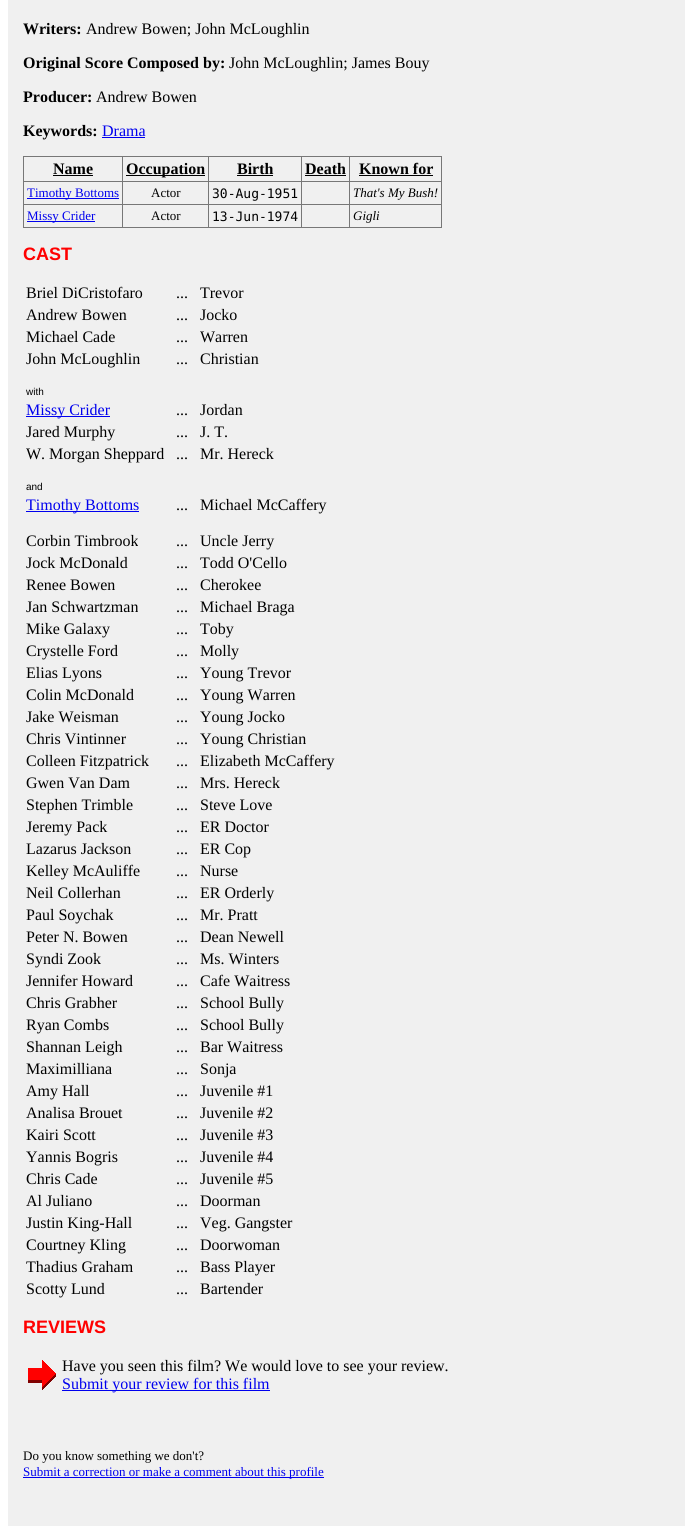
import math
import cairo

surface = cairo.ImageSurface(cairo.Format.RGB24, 685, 1526)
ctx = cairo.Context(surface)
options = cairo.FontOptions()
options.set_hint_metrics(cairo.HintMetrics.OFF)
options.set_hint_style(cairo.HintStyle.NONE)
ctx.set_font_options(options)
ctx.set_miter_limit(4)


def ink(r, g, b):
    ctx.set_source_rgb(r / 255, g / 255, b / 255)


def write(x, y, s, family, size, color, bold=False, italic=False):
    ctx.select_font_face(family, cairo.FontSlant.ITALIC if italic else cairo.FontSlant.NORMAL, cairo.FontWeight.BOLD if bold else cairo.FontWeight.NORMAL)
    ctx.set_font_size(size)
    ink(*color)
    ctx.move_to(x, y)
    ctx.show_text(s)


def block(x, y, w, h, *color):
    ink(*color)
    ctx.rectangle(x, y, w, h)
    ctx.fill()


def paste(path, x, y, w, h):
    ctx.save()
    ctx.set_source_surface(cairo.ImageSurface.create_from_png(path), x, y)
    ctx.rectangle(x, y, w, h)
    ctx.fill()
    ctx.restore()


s1 = dict(family="Liberation Serif", size=16, color=(0, 0, 0), bold=True)
s2 = dict(family="Liberation Serif", size=16, color=(0, 0, 0))
s3 = dict(family="Liberation Serif", size=16, color=(0, 0, 238))
s4 = dict(family="Liberation Serif", size=13, color=(0, 0, 238))
s5 = dict(family="Liberation Serif", size=13, color=(0, 0, 0))
s6 = dict(family="DejaVu Sans Mono", size=13, color=(0, 0, 0))
s7 = dict(family="Liberation Serif", size=13, color=(0, 0, 0), italic=True)
s8 = dict(family="Liberation Sans", size=18, color=(255, 0, 0), bold=True)
s9 = dict(family="Liberation Sans", size=10, color=(0, 0, 0))

ink(255, 255, 255)
ctx.paint()
block(8, 0, 677, 1526, 240, 240, 240)
write(23, 34, "Writers:", **s1)
write(86, 34, "Andrew Bowen; John McLoughlin", **s2)
write(23, 68, "Original Score Composed by:", **s1)
write(229, 68, "John McLoughlin; James Bouy", **s2)
write(23, 102, "Producer:", **s1)
write(96, 102, "Andrew Bowen", **s2)
write(23, 136, "Keywords:", **s1)
write(102, 136, "Drama", **s3)
block(102, 137, 43, 1, 0, 0, 238)
block(23, 156, 419, 1, 119, 119, 119)
block(441, 156, 1, 72, 119, 119, 119)
block(23, 227, 419, 1, 119, 119, 119)
block(23, 156, 1, 72, 119, 119, 119)
write(53, 174, "Name", **s1)
block(53, 175, 40, 1, 0, 0, 0)
block(349, 181, 93, 1, 119, 119, 119)
block(349, 204, 93, 1, 119, 119, 119)
block(349, 204, 1, 24, 119, 119, 119)
block(301, 204, 49, 1, 119, 119, 119)
block(349, 181, 1, 24, 119, 119, 119)
block(301, 181, 49, 1, 119, 119, 119)
block(301, 204, 1, 24, 119, 119, 119)
block(208, 204, 94, 1, 119, 119, 119)
block(301, 181, 1, 24, 119, 119, 119)
block(208, 181, 94, 1, 119, 119, 119)
block(208, 204, 1, 24, 119, 119, 119)
block(122, 204, 87, 1, 119, 119, 119)
block(208, 181, 1, 24, 119, 119, 119)
block(122, 181, 87, 1, 119, 119, 119)
block(122, 204, 1, 24, 119, 119, 119)
block(23, 204, 100, 1, 119, 119, 119)
block(122, 181, 1, 24, 119, 119, 119)
block(23, 181, 100, 1, 119, 119, 119)
block(122, 156, 1, 26, 119, 119, 119)
block(126, 175, 79, 1, 0, 0, 0)
write(126, 174, "Occupation", **s1)
block(208, 156, 1, 26, 119, 119, 119)
write(237, 174, "Birth", **s1)
block(237, 175, 36, 1, 0, 0, 0)
block(301, 156, 1, 26, 119, 119, 119)
write(305, 174, "Death", **s1)
block(305, 175, 41, 1, 0, 0, 0)
block(349, 156, 1, 26, 119, 119, 119)
write(359, 174, "Known for", **s1)
block(359, 175, 74, 1, 0, 0, 0)
block(27, 198, 92, 1, 0, 0, 238)
write(27, 197, "Timothy Bottoms", **s4)
write(151, 197, "Actor", **s5)
write(212, 198, "30-Aug-1951", **s6)
write(353, 197, "That's My Bush!", **s7)
block(27, 221, 68, 1, 0, 0, 238)
write(27, 220, "Missy Crider", **s4)
write(151, 220, "Actor", **s5)
write(212, 221, "13-Jun-1974", **s6)
write(353, 220, "Gigli", **s7)
write(23, 260, "CAST", **s8)
write(26, 298, "Briel DiCristofaro", **s2)
write(176, 298, "...   Trevor", **s2)
write(26, 320, "Andrew Bowen", **s2)
write(176, 320, "...   Jocko", **s2)
write(26, 342, "Michael Cade", **s2)
write(176, 342, "...   Warren", **s2)
write(26, 364, "John McLoughlin", **s2)
write(176, 364, "...   Christian", **s2)
write(26, 395, "with", **s9)
block(26, 416, 84, 1, 0, 0, 238)
write(26, 415, "Missy Crider", **s3)
write(176, 415, "...   Jordan", **s2)
write(26, 437, "Jared Murphy", **s2)
write(176, 437, "...   J. T.", **s2)
write(26, 459, "W. Morgan Sheppard", **s2)
write(176, 459, "...   Mr. Hereck", **s2)
write(26, 490, "and", **s9)
block(26, 511, 113, 1, 0, 0, 238)
write(26, 510, "Timothy Bottoms", **s3)
write(176, 510, "...   Michael McCaffery", **s2)
write(26, 546, "Corbin Timbrook", **s2)
write(176, 546, "...   Uncle Jerry", **s2)
write(26, 568, "Jock McDonald", **s2)
write(176, 568, "...   Todd O'Cello", **s2)
write(26, 590, "Renee Bowen", **s2)
write(176, 590, "...   Cherokee", **s2)
write(26, 612, "Jan Schwartzman", **s2)
write(176, 612, "...   Michael Braga", **s2)
write(26, 634, "Mike Galaxy", **s2)
write(176, 634, "...   Toby", **s2)
write(26, 656, "Crystelle Ford", **s2)
write(176, 656, "...   Molly", **s2)
write(26, 678, "Elias Lyons", **s2)
write(176, 678, "...   Young Trevor", **s2)
write(26, 700, "Colin McDonald", **s2)
write(176, 700, "...   Young Warren", **s2)
write(26, 722, "Jake Weisman", **s2)
write(176, 722, "...   Young Jocko", **s2)
write(26, 744, "Chris Vintinner", **s2)
write(176, 744, "...   Young Christian", **s2)
write(26, 766, "Colleen Fitzpatrick", **s2)
write(176, 766, "...   Elizabeth McCaffery", **s2)
write(26, 788, "Gwen Van Dam", **s2)
write(176, 788, "...   Mrs. Hereck", **s2)
write(26, 810, "Stephen Trimble", **s2)
write(176, 810, "...   Steve Love", **s2)
write(26, 832, "Jeremy Pack", **s2)
write(176, 832, "...   ER Doctor", **s2)
write(26, 854, "Lazarus Jackson", **s2)
write(176, 854, "...   ER Cop", **s2)
write(26, 876, "Kelley McAuliffe", **s2)
write(176, 876, "...   Nurse", **s2)
write(26, 898, "Neil Collerhan", **s2)
write(176, 898, "...   ER Orderly", **s2)
write(26, 920, "Paul Soychak", **s2)
write(176, 920, "...   Mr. Pratt", **s2)
write(26, 942, "Peter N. Bowen", **s2)
write(176, 942, "...   Dean Newell", **s2)
write(26, 964, "Syndi Zook", **s2)
write(176, 964, "...   Ms. Winters", **s2)
write(26, 986, "Jennifer Howard", **s2)
write(176, 986, "...   Cafe Waitress", **s2)
write(26, 1008, "Chris Grabher", **s2)
write(176, 1008, "...   School Bully", **s2)
write(26, 1030, "Ryan Combs", **s2)
write(176, 1030, "...   School Bully", **s2)
write(26, 1052, "Shannan Leigh", **s2)
write(176, 1052, "...   Bar Waitress", **s2)
write(26, 1074, "Maximilliana", **s2)
write(176, 1074, "...   Sonja", **s2)
write(26, 1096, "Amy Hall", **s2)
write(176, 1096, "...   Juvenile #1", **s2)
write(26, 1118, "Analisa Brouet", **s2)
write(176, 1118, "...   Juvenile #2", **s2)
write(26, 1140, "Kairi Scott", **s2)
write(176, 1140, "...   Juvenile #3", **s2)
write(26, 1162, "Yannis Bogris", **s2)
write(176, 1162, "...   Juvenile #4", **s2)
write(26, 1184, "Chris Cade", **s2)
write(176, 1184, "...   Juvenile #5", **s2)
write(26, 1206, "Al Juliano", **s2)
write(176, 1206, "...   Doorman", **s2)
write(26, 1228, "Justin King-Hall", **s2)
write(176, 1228, "...   Veg. Gangster", **s2)
write(26, 1250, "Courtney Kling", **s2)
write(176, 1250, "...   Doorwoman", **s2)
write(26, 1272, "Thadius Graham", **s2)
write(176, 1272, "...   Bass Player", **s2)
write(26, 1294, "Scotty Lund", **s2)
write(176, 1294, "...   Bartender", **s2)
write(23, 1333, "REVIEWS", **s8)
paste("pic1.png", 28, 1360, 28, 30)
write(62, 1371, "Have you seen this film? We would love to see your review.", **s2)
block(62, 1390, 208, 1, 0, 0, 238)
write(62, 1389, "Submit your review for this film", **s3)
write(23, 1460, "Do you know something we don't?", **s5)
block(23, 1477, 301, 1, 0, 0, 238)
write(23, 1476, "Submit a correction or make a comment about this profile", **s4)
surface.write_to_png("screenshot.png")
